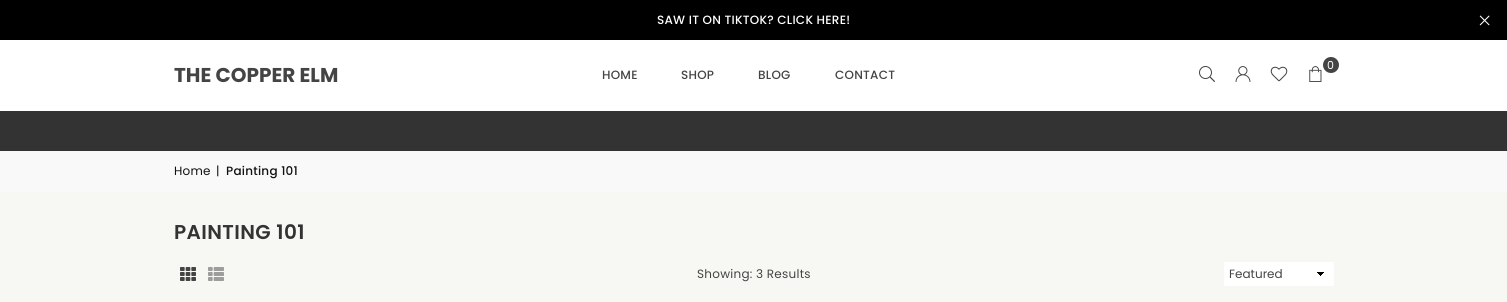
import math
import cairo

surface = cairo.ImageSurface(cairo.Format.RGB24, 1507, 302)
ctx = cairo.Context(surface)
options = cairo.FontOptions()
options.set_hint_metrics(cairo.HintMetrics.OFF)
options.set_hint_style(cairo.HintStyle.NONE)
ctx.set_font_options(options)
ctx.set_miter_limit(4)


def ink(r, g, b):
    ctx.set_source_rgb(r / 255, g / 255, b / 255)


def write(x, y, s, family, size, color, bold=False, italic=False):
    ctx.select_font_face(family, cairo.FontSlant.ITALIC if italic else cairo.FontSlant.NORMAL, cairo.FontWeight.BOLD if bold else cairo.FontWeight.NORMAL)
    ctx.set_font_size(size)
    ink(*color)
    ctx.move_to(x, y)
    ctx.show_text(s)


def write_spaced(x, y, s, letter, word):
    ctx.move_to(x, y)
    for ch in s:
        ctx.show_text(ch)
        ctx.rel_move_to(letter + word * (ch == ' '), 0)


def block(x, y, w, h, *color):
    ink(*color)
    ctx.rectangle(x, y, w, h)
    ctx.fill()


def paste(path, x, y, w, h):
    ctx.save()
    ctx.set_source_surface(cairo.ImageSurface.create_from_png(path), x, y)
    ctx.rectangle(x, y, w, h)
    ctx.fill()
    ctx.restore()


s1 = dict(family="Poppins", size=20, color=(68, 68, 68), bold=True)
s2 = dict(family="Poppins", size=12, color=(68, 68, 68))

ink(247, 247, 244)
ctx.paint()
block(0, 0, 1507, 40, 0, 0, 0)
ctx.select_font_face("Poppins Medium")
ctx.set_font_size(12)
ink(255, 255, 255)
write_spaced(657, 24, "SAW IT ON TIKTOK? CLICK HERE!", 0.25, 0)
paste("pic1.png", 1479, 15, 11, 11)
block(0, 40, 1507, 71, 255, 255, 255)
ink(68, 68, 68)
ctx.arc(1331, 65, 8, 0, 2 * math.pi)
ctx.fill()
ctx.select_font_face("Poppins")
ctx.set_font_size(11)
ink(255, 255, 255)
write_spaced(1327, 69, "0", 0.25, 0)
paste("pic2.png", 1309, 66, 13, 16)
paste("pic3.png", 1199, 66, 16, 16)
paste("pic4.png", 1235, 66, 16, 16)
paste("pic5.png", 1270, 66, 18, 16)
write(174, 82, "THE COPPER ELM", **s1)
ctx.select_font_face("Poppins Medium")
ctx.set_font_size(12)
write_spaced(602, 79, "HOME", 0.25, 0)
write_spaced(681, 79, "SHOP", 0.25, 0)
write_spaced(758, 79, "BLOG", 0.25, 0)
write_spaced(835, 79, "CONTACT", 0.25, 0)
block(0, 111, 1507, 40, 51, 51, 51)
block(0, 151, 1507, 41, 249, 249, 249)
ctx.select_font_face("Poppins")
ink(17, 17, 17)
write_spaced(174, 175, "Home", 0.25, 0)
write_spaced(216, 175, "|", 0.25, 0)
ctx.select_font_face("Poppins Medium")
write_spaced(226, 175, "Painting 101", 0.25, 0)
ctx.select_font_face("Poppins SemiBold")
ctx.set_font_size(20)
ink(51, 51, 51)
write_spaced(174, 239, "PAINTING 101", 0.4, 0)
paste("pic6.png", 180, 267, 16, 14)
paste("pic7.png", 208, 267, 16, 14)
ctx.select_font_face("Poppins")
ctx.set_font_size(12)
ink(68, 68, 68)
write_spaced(697, 278, "Showing: 3 Results", 0.25, 0)
block(1224, 262, 110, 24, 255, 255, 255)
paste("pic8.png", 1317, 272, 7, 4)
write(1229, 278, "Featured", **s2)
surface.write_to_png("screenshot.png")
